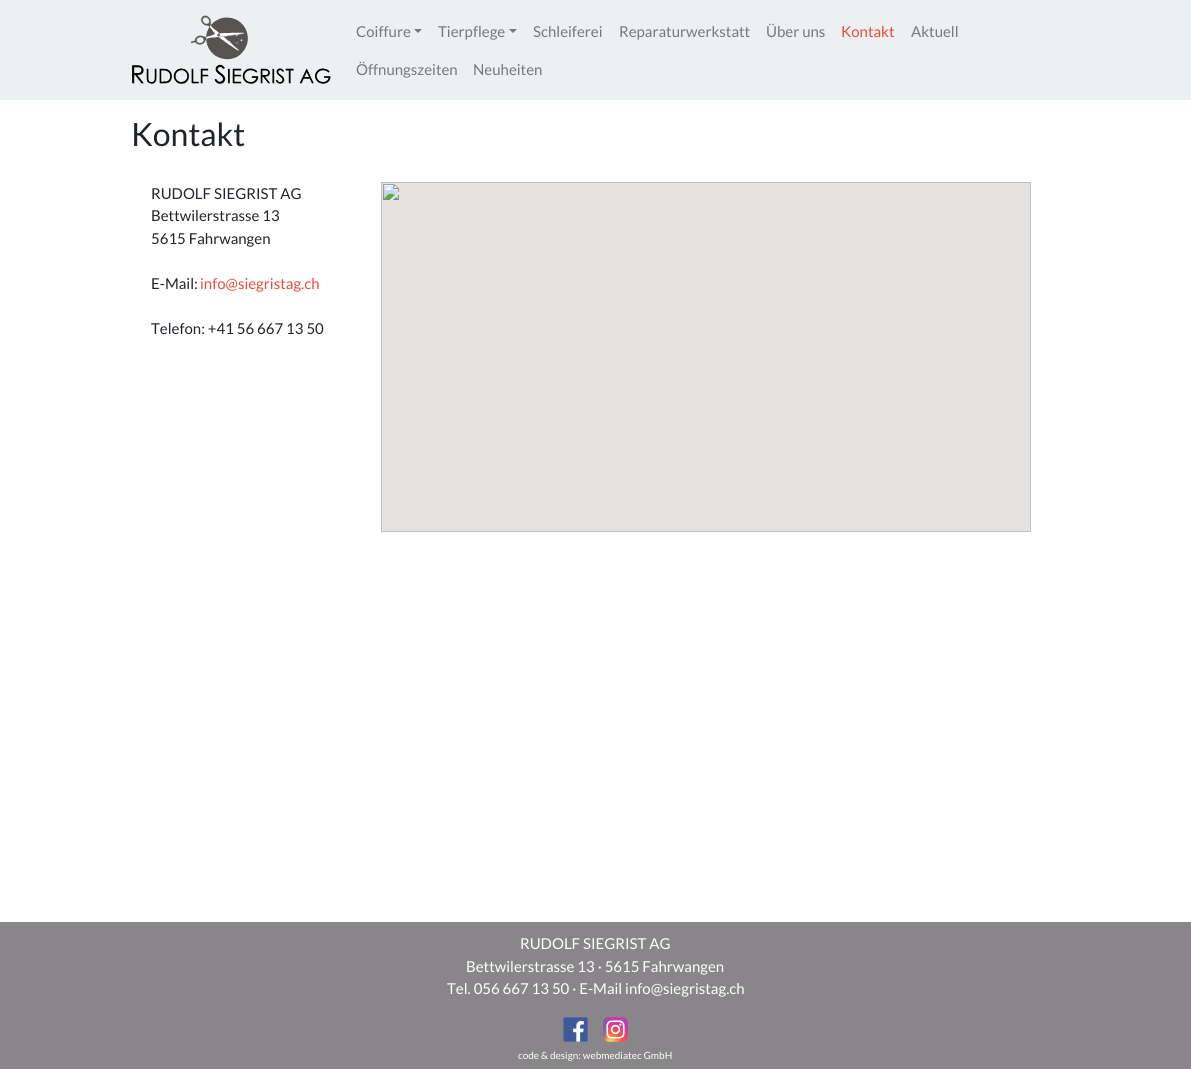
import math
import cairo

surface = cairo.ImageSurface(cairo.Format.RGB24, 1191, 1069)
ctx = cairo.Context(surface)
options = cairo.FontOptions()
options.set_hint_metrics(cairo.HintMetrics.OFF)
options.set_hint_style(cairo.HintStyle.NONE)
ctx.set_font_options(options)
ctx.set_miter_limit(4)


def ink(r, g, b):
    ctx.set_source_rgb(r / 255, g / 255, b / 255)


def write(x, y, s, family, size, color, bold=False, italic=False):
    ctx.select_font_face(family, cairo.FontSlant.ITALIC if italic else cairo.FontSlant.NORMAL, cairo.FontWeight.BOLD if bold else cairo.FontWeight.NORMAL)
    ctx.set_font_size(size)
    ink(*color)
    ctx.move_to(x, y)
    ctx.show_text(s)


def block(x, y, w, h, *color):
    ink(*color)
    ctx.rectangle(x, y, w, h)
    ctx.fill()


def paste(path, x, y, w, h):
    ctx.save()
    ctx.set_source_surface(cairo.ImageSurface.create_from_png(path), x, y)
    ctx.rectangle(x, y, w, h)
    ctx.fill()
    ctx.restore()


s1 = dict(family="Lato", size=15, color=(118, 120, 121))
s2 = dict(family="Lato", size=15, color=(231, 76, 60))
s3 = dict(family="Lato", size=32, color=(33, 37, 41))
s4 = dict(family="Lato", size=15, color=(33, 37, 41))
s5 = dict(family="Lato", size=15, color=(255, 255, 255))
s6 = dict(family="Lato", size=10, color=(255, 255, 255))

ink(255, 255, 255)
ctx.paint()
block(0, 0, 1191, 100, 236, 240, 241)
paste("pic1.png", 132, 15, 199, 69)
write(356, 37, "Coiffure", **s1)
ctx.new_path()
ctx.move_to(414, 29)
ctx.line_to(422, 29)
ctx.line_to(418, 33)
ctx.close_path()
ctx.fill()
write(438, 37, "Tierpflege", **s1)
ctx.new_path()
ctx.move_to(509, 29)
ctx.line_to(517, 29)
ctx.line_to(513, 33)
ctx.close_path()
ctx.fill()
write(533, 37, "Schleiferei", **s1)
write(619, 37, "Reparaturwerkstatt", **s1)
write(766, 37, "Über uns", **s1)
write(841, 37, "Kontakt", **s2)
write(911, 37, "Aktuell", **s1)
write(356, 75, "Öffnungszeiten", **s1)
write(473, 75, "Neuheiten", **s1)
write(131, 146, "Kontakt", **s3)
write(151, 199, "RUDOLF SIEGRIST AG", **s4)
write(151, 221, "Bettwilerstrasse 13", **s4)
write(151, 244, "5615 Fahrwangen", **s4)
write(151, 289, "E-Mail:", **s4)
write(200, 289, "info@siegristag.ch", **s2)
write(151, 334, "Telefon: +41 56 667 13 50", **s4)
paste("pic2.png", 381, 182, 650, 350)
block(0, 922, 1191, 147, 136, 134, 136)
write(520, 949, "RUDOLF SIEGRIST AG", **s5)
write(466, 972, "Bettwilerstrasse 13 · 5615 Fahrwangen", **s5)
write(447, 994, "Tel. 056 667 13 50 · E-Mail info@siegristag.ch", **s5)
paste("pic3.png", 563, 1017, 25, 25)
paste("pic4.png", 603, 1017, 25, 25)
write(518, 1059, "code & design: webmediatec GmbH", **s6)
surface.write_to_png("screenshot.png")
